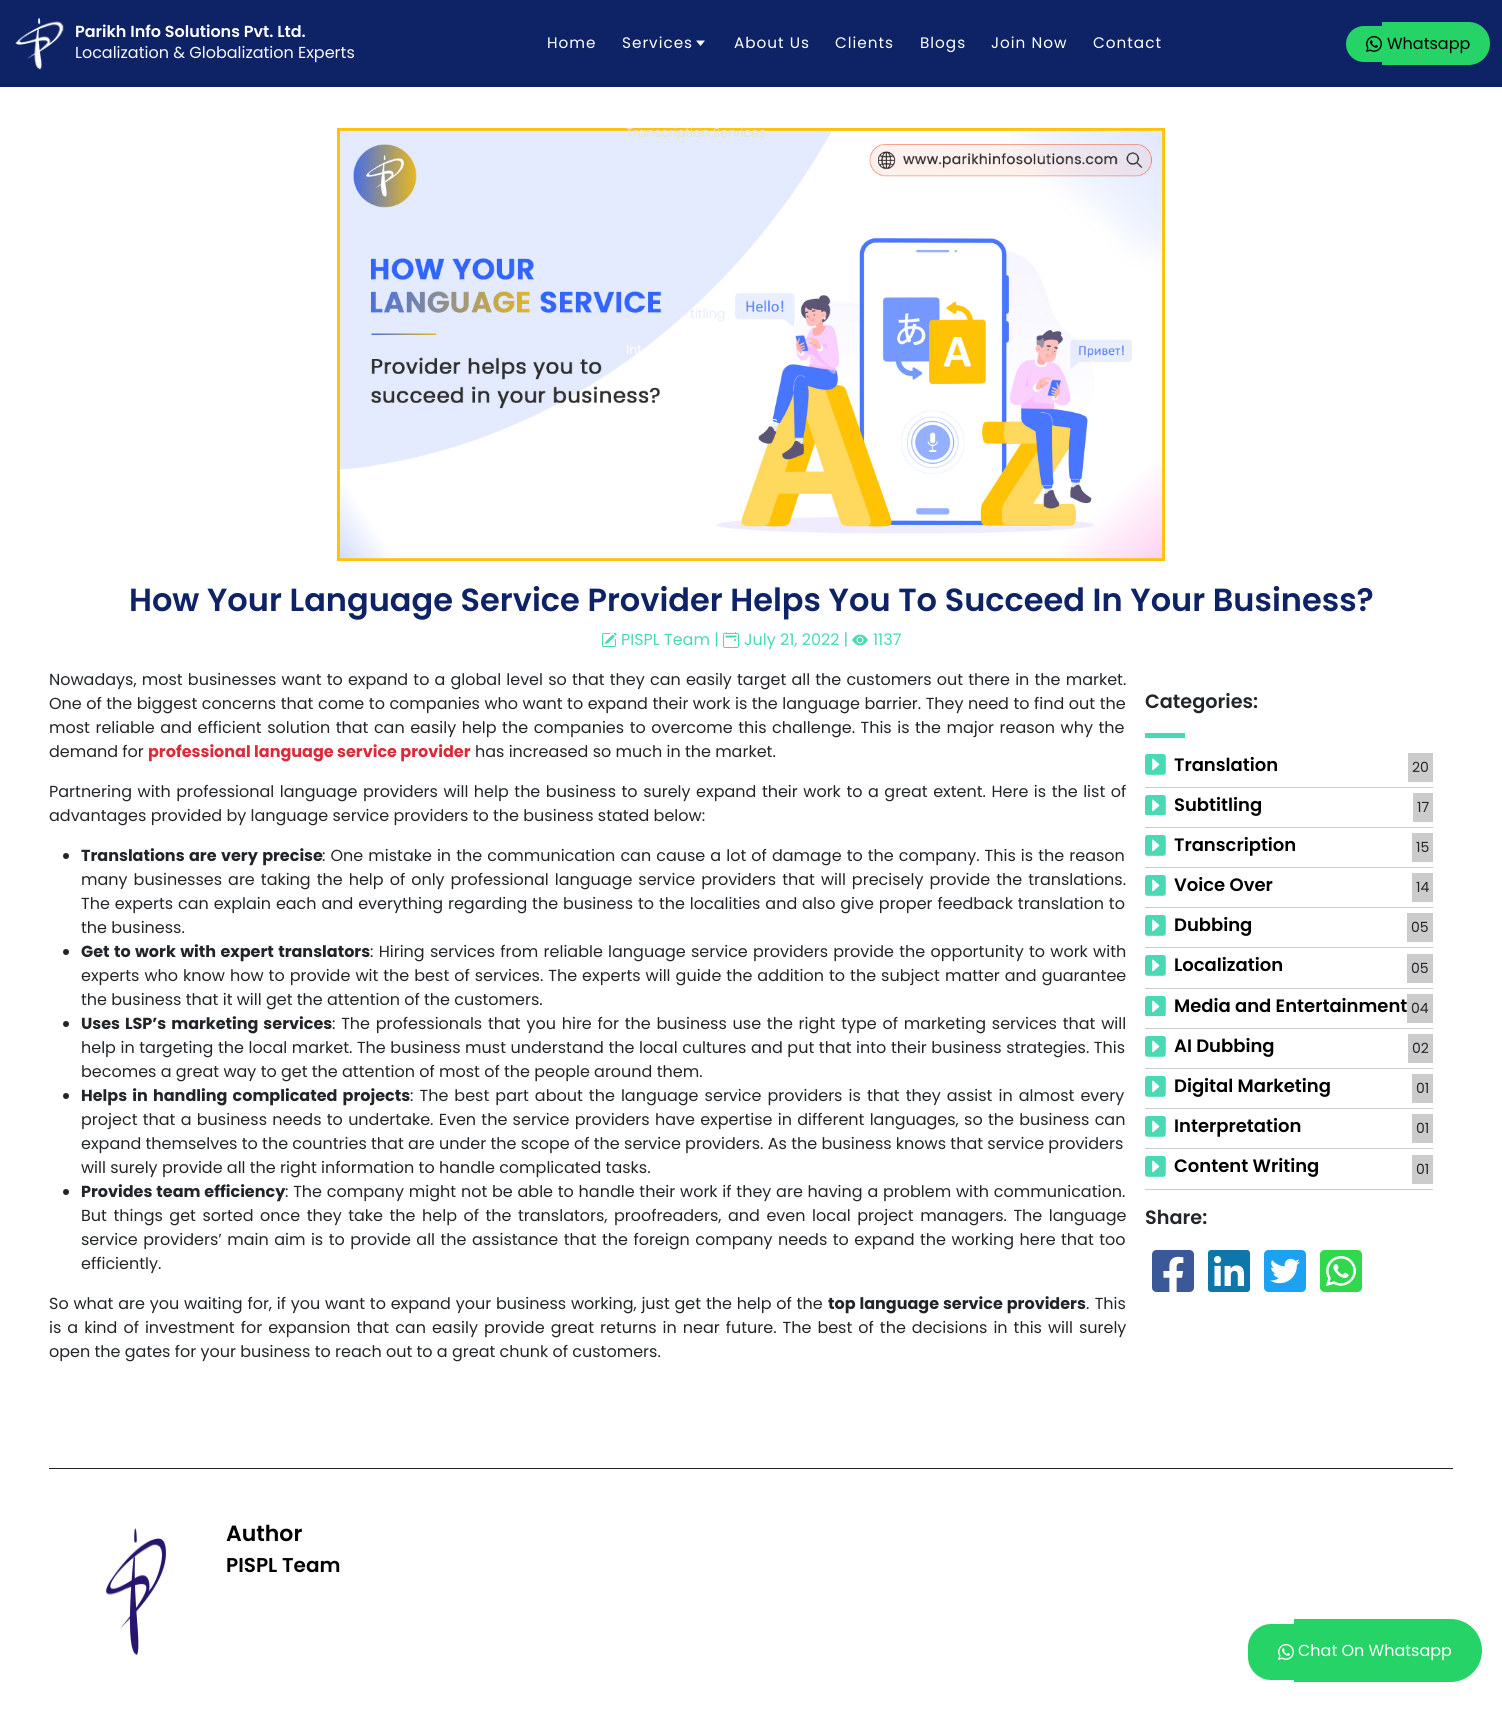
import math
import cairo

surface = cairo.ImageSurface(cairo.Format.RGB24, 1502, 1713)
ctx = cairo.Context(surface)
options = cairo.FontOptions()
options.set_hint_metrics(cairo.HintMetrics.OFF)
options.set_hint_style(cairo.HintStyle.NONE)
ctx.set_font_options(options)
ctx.set_miter_limit(4)


def ink(r, g, b):
    ctx.set_source_rgb(r / 255, g / 255, b / 255)


def write(x, y, s, family, size, color, bold=False, italic=False):
    ctx.select_font_face(family, cairo.FontSlant.ITALIC if italic else cairo.FontSlant.NORMAL, cairo.FontWeight.BOLD if bold else cairo.FontWeight.NORMAL)
    ctx.set_font_size(size)
    ink(*color)
    ctx.move_to(x, y)
    ctx.show_text(s)


def write_spaced(x, y, s, letter, word):
    ctx.move_to(x, y)
    for ch in s:
        ctx.show_text(ch)
        ctx.rel_move_to(letter + word * (ch == ' '), 0)


def block(x, y, w, h, *color):
    ink(*color)
    ctx.rectangle(x, y, w, h)
    ctx.fill()


def paste(path, x, y, w, h):
    ctx.save()
    ctx.set_source_surface(cairo.ImageSurface.create_from_png(path), x, y)
    ctx.rectangle(x, y, w, h)
    ctx.fill()
    ctx.restore()


s1 = dict(family="Poppins SemiBold", size=16, color=(255, 255, 255))
s2 = dict(family="Poppins", size=16, color=(248, 249, 250))
s3 = dict(family="Poppins", size=12.75, color=(233, 227, 203))
s4 = dict(family="Poppins", size=12.75, color=(229, 235, 254))
s5 = dict(family="Poppins", size=12.75, color=(255, 255, 255))
s6 = dict(family="Poppins", size=16, color=(0, 0, 0))
s7 = dict(family="Poppins SemiBold", size=32, color=(13, 35, 102))
s8 = dict(family="Poppins", size=16, color=(73, 218, 181))
s9 = dict(family="Poppins", size=16, color=(33, 37, 41))
s10 = dict(family="Poppins", size=16, color=(219, 43, 57), bold=True)
s11 = dict(family="Poppins SemiBold", size=19.25, color=(33, 37, 41))
s12 = dict(family="Poppins SemiBold", size=18, color=(0, 0, 0))
s13 = dict(family="Poppins", size=14, color=(33, 37, 41))
s14 = dict(family="Poppins SemiBold", size=22, color=(0, 0, 0))
s15 = dict(family="Poppins SemiBold", size=20, color=(0, 0, 0))
s16 = dict(family="Poppins", size=16, color=(255, 255, 255))

ink(255, 255, 255)
ctx.paint()
block(0, 0, 1502, 87, 13, 35, 102)
paste("pic1.png", 15, 17, 49, 53)
write(75, 37, "Parikh Info Solutions Pvt. Ltd.", **s1)
write(75, 58, "Localization & Globalization Experts", **s2)
ctx.set_font_size(15.25)
ink(255, 255, 255)
write_spaced(622, 48, "Services", 1, 0)
ctx.new_path()
ctx.move_to(700.5, 46)
ctx.line_to(705, 40.5)
ctx.line_to(696, 40.5)
ctx.close_path()
ctx.fill()
paste("pic3.png", 337, 128, 828, 433)
write(626, 137, "Transcription Services", **s3)
write(690, 318, "titling", **s4)
write(626, 354, "Int", **s5)
write(771, 426, "s", **s5)
ctx.set_font_size(15.25)
write_spaced(547, 48, "Home", 1, 0)
write_spaced(734, 48, "About Us", 1, 0)
write_spaced(835, 48, "Clients", 1, 0)
write_spaced(920, 48, "Blogs", 1, 0)
write_spaced(991, 48, "Join Now", 1, 0)
write_spaced(1093, 48, "Contact", 1, 0)
ink(37, 211, 102)
ctx.new_path()
ctx.move_to(1364, 26)
ctx.line_to(1382, 26)
ctx.line_to(1382, 62)
ctx.line_to(1364, 62)
ctx.curve_to(1354, 62, 1346, 54, 1346, 44)
ctx.curve_to(1346, 34, 1354, 26, 1364, 26)
ctx.close_path()
ctx.fill()
paste("pic2.png", 1366, 36, 16, 16)
ctx.new_path()
ctx.move_to(1382, 22)
ctx.line_to(1468.5, 22)
ctx.curve_to(1480.5, 22, 1490, 31.5, 1490, 43.5)
ctx.curve_to(1490, 55.5, 1480.5, 65, 1468.5, 65)
ctx.line_to(1382, 65)
ctx.close_path()
ctx.fill()
write(1387, 49, "Whatsapp", **s6)
write(129, 611, "How Your Language Service Provider Helps You To Succeed In Your Business?", **s7)
paste("pic4.png", 602, 632, 15, 15)
write(621, 645, "PISPL Team |", **s8)
paste("pic5.png", 723, 632, 16, 16)
write(744, 645, "July 21, 2022 |", **s8)
paste("pic6.png", 852, 634, 16, 12)
write(873, 645, "1137", **s8)
ink(33, 37, 41)
write_spaced(49, 685, "Nowadays, most businesses want to expand to a global level so that they can easily target all the customers out there in the market.", 0, 0.9)
write_spaced(49, 709, "One of the biggest concerns that come to companies who want to expand their work is the language barrier. They need to find out the", 0, 0.25)
write_spaced(49, 733, "most reliable and efficient solution that can easily help the companies to overcome this challenge. This is the major reason why the", 0, 1.25)
write(49, 757, "demand for", **s9)
write(148, 757, "professional language service provider", **s10)
write(475, 757, "has increased so much in the market.", **s9)
write_spaced(49, 797, "Partnering with professional language providers will help the business to surely expand their work to a great extent. Here is the list of", 0, 1.25)
write(49, 821, "advantages provided by language service providers to the business stated below:", **s9)
ctx.new_path()
ctx.arc(66, 856, 3, 0, 2 * math.pi)
ctx.fill()
ctx.select_font_face("Poppins", cairo.FontSlant.NORMAL, cairo.FontWeight.BOLD)
write_spaced(81, 861, "Translations are very precise", 0, 1)
ctx.select_font_face("Poppins")
write_spaced(322, 861, ": One mistake in the communication can cause a lot of damage to the company. This is the reason", 0, 0.8)
write_spaced(81, 885, "many businesses are taking the help of only professional language service providers that will precisely provide the translations.", 0, 1.75)
write_spaced(81, 909, "The experts can explain each and everything regarding the business to the localities and also give proper feedback translation to", 0, 0.6)
write(81, 933, "the business.", **s9)
ctx.new_path()
ctx.arc(66, 952, 3, 0, 2 * math.pi)
ctx.fill()
ctx.select_font_face("Poppins", cairo.FontSlant.NORMAL, cairo.FontWeight.BOLD)
write_spaced(81, 957, "Get to work with expert translators", 0, 1)
ctx.select_font_face("Poppins")
write_spaced(370, 957, ": Hiring services from reliable language service providers provide the opportunity to work with", 0, 1)
write_spaced(81, 981, "experts who know how to provide wit the best of services. The experts will guide the addition to the subject matter and guarantee", 0, 0.75)
write(81, 1005, "the business that it will get the attention of the customers.", **s9)
ctx.new_path()
ctx.arc(66, 1024, 3, 0, 2 * math.pi)
ctx.fill()
ctx.select_font_face("Poppins", cairo.FontSlant.NORMAL, cairo.FontWeight.BOLD)
write_spaced(81, 1029, "Uses LSP’s marketing services", 0, 1.5)
ctx.select_font_face("Poppins")
write_spaced(332, 1029, ": The professionals that you hire for the business use the right type of marketing services that will", 0, 1.5)
write_spaced(81, 1053, "help in targeting the local market. The business must understand the local cultures and put that into their business strategies. This", 0, 0.3)
write(81, 1077, "becomes a great way to get the attention of most of the people around them.", **s9)
ctx.new_path()
ctx.arc(66, 1096, 3, 0, 2 * math.pi)
ctx.fill()
ctx.select_font_face("Poppins", cairo.FontSlant.NORMAL, cairo.FontWeight.BOLD)
write_spaced(81, 1101, "Helps in handling complicated projects", 0, 1.8)
ctx.select_font_face("Poppins")
write_spaced(410, 1101, ": The best part about the language service providers is that they assist in almost every", 0, 1.8)
write_spaced(81, 1125, "project that a business needs to undertake. Even the service providers have expertise in different languages, so the business can", 0, 1)
write(81, 1149, "expand themselves to the countries that are under the scope of the service providers. As the business knows that service providers", **s9)
write(81, 1173, "will surely provide all the right information to handle complicated tasks.", **s9)
ctx.new_path()
ctx.arc(66, 1192, 3, 0, 2 * math.pi)
ctx.fill()
ctx.select_font_face("Poppins", cairo.FontSlant.NORMAL, cairo.FontWeight.BOLD)
write_spaced(81, 1197, "Provides team efficiency", 0, 0.5)
ctx.select_font_face("Poppins")
write_spaced(285, 1197, ": The company might not be able to handle their work if they are having a problem with communication.", 0, 0.5)
write_spaced(81, 1221, "But things get sorted once they take the help of the translators, proofreaders, and even local project managers. The language", 0, 2.25)
write_spaced(81, 1245, "service providers’ main aim is to provide all the assistance that the foreign company needs to expand the working here that too", 0, 1.2)
write(81, 1269, "efficiently.", **s9)
write_spaced(49, 1309, "So what are you waiting for, if you want to expand your business working, just get the help of the", 0, 0.5)
ctx.select_font_face("Poppins", cairo.FontSlant.NORMAL, cairo.FontWeight.BOLD)
write_spaced(828, 1309, "top language service providers", 0, 0.5)
ctx.select_font_face("Poppins")
write_spaced(1086, 1309, ". This", 0, 1)
write_spaced(49, 1333, "is a kind of investment for expansion that can easily provide great returns in near future. The best of the decisions in this will surely", 0, 1.75)
write(49, 1357, "open the gates for your business to reach out to a great chunk of customers.", **s9)
write(1145, 708, "Categories:", **s11)
block(1145, 733, 40, 5, 73, 218, 181)
block(1145, 787, 288, 1, 204, 204, 204)
paste("pic7.png", 1145, 754, 21, 21)
write(1174, 771, "Translation", **s12)
block(1408, 753, 25, 29, 204, 204, 204)
write(1412, 772, "20", **s13)
block(1145, 827, 288, 1, 204, 204, 204)
paste("pic8.png", 1145, 795, 21, 20)
write(1174, 811, "Subtitling", **s12)
block(1413, 793, 20, 29, 204, 204, 204)
write(1417, 812, "17", **s13)
block(1145, 867, 288, 1, 204, 204, 204)
paste("pic7.png", 1145, 835, 21, 21)
write(1174, 851, "Transcription", **s12)
block(1412, 833, 21, 29, 204, 204, 204)
write(1416, 852, "15", **s13)
block(1145, 907, 288, 1, 204, 204, 204)
paste("pic7.png", 1145, 875, 21, 21)
write(1174, 891, "Voice Over", **s12)
block(1412, 873, 21, 29, 204, 204, 204)
write(1416, 892, "14", **s13)
block(1145, 947, 288, 1, 204, 204, 204)
paste("pic7.png", 1145, 915, 21, 21)
write(1174, 931, "Dubbing", **s12)
block(1407, 913, 26, 29, 204, 204, 204)
write(1411, 932, "05", **s13)
block(1145, 988, 288, 1, 204, 204, 204)
paste("pic7.png", 1145, 955, 21, 21)
write(1174, 971, "Localization", **s12)
block(1407, 954, 26, 29, 204, 204, 204)
write(1411, 973, "05", **s13)
block(1145, 1028, 288, 1, 204, 204, 204)
paste("pic8.png", 1145, 996, 21, 20)
write(1174, 1012, "Media and Entertainment", **s12)
block(1407, 994, 26, 29, 204, 204, 204)
write(1411, 1013, "04", **s13)
block(1145, 1068, 288, 1, 204, 204, 204)
paste("pic7.png", 1145, 1036, 21, 21)
write(1174, 1052, "AI Dubbing", **s12)
block(1408, 1034, 25, 29, 204, 204, 204)
write(1412, 1053, "02", **s13)
block(1145, 1108, 288, 1, 204, 204, 204)
paste("pic7.png", 1145, 1076, 21, 21)
write(1174, 1092, "Digital Marketing", **s12)
block(1412, 1074, 21, 29, 204, 204, 204)
write(1416, 1093, "01", **s13)
block(1145, 1148, 288, 1, 204, 204, 204)
paste("pic7.png", 1145, 1116, 21, 21)
write(1174, 1132, "Interpretation", **s12)
block(1412, 1114, 21, 29, 204, 204, 204)
write(1416, 1133, "01", **s13)
block(1145, 1189, 288, 1, 204, 204, 204)
paste("pic7.png", 1145, 1156, 21, 21)
write(1174, 1172, "Content Writing", **s12)
block(1412, 1155, 21, 29, 204, 204, 204)
write(1416, 1174, "01", **s13)
write(1145, 1224, "Share:", **s11)
paste("pic9.png", 1152, 1250, 42, 42)
paste("pic10.png", 1208, 1250, 42, 42)
paste("pic11.png", 1264, 1250, 42, 42)
paste("pic12.png", 1320, 1250, 42, 42)
block(49, 1468, 1404, 1, 33, 37, 41)
paste("pic13.png", 105, 1528, 61, 128)
write(226, 1541, "Author", **s14)
write(226, 1572, "PISPL Team", **s15)
ink(37, 211, 102)
ctx.new_path()
ctx.move_to(1271, 1624)
ctx.line_to(1294, 1624)
ctx.line_to(1294, 1680)
ctx.line_to(1271, 1680)
ctx.curve_to(1258.5, 1680, 1248, 1669.5, 1248, 1657)
ctx.line_to(1248, 1647)
ctx.curve_to(1248, 1634.5, 1258.5, 1624, 1271, 1624)
ctx.close_path()
ctx.fill()
paste("pic14.png", 1278, 1644, 16, 16)
ctx.new_path()
ctx.move_to(1294, 1619)
ctx.line_to(1450.5, 1619)
ctx.curve_to(1468, 1619, 1482, 1633, 1482, 1650.5)
ctx.curve_to(1482, 1668, 1468, 1682, 1450.5, 1682)
ctx.line_to(1294, 1682)
ctx.close_path()
ctx.fill()
write(1298, 1656, "Chat On Whatsapp", **s16)
surface.write_to_png("screenshot.png")
